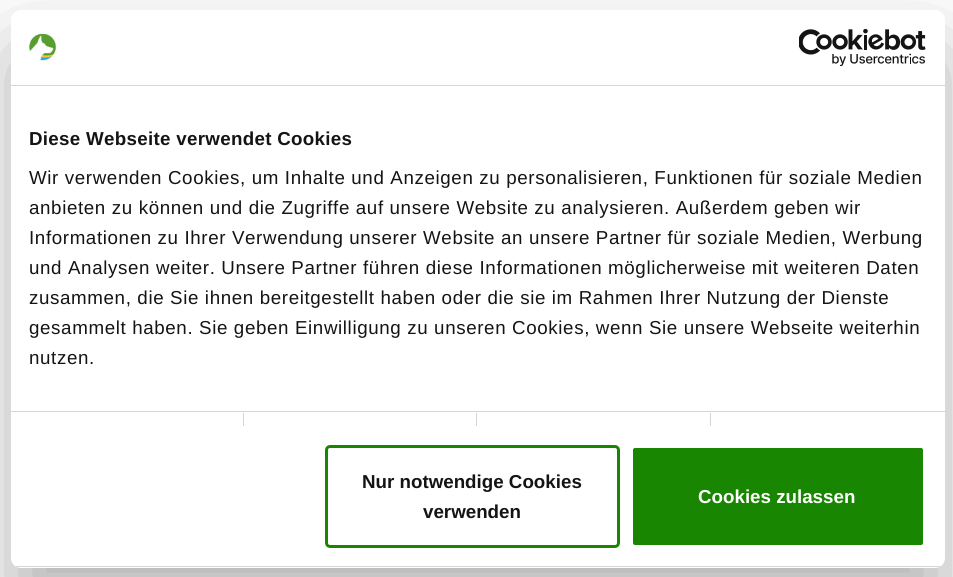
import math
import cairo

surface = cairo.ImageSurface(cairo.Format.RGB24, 953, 577)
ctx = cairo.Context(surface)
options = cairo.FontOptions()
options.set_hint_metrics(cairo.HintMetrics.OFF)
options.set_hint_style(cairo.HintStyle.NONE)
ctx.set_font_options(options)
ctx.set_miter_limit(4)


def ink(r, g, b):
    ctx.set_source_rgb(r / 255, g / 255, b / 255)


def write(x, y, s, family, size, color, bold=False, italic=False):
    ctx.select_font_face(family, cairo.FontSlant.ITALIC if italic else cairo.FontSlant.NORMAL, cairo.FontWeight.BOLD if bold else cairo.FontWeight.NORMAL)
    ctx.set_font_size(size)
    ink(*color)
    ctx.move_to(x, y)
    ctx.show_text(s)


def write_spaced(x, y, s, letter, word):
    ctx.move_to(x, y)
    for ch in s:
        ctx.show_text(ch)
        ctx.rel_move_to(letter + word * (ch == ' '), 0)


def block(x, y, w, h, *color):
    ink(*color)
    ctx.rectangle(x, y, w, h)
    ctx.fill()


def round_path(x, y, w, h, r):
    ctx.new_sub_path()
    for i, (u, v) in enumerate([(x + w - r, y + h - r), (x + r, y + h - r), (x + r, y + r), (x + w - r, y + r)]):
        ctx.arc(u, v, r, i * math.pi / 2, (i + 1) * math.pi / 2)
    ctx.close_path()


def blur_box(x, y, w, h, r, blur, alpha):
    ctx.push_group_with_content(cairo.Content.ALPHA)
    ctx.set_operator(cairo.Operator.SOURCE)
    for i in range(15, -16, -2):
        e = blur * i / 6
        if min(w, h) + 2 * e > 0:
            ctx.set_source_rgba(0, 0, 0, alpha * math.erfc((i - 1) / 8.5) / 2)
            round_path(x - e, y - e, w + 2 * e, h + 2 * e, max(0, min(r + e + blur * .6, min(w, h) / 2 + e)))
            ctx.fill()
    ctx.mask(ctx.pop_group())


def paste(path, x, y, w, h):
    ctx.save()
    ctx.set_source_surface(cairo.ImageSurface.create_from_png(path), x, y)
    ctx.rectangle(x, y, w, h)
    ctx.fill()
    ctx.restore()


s1 = dict(family="Liberation Sans", size=18.75, color=(20, 20, 20), bold=True)
s2 = dict(family="Liberation Sans", size=18.75, color=(255, 255, 255), bold=True)

ink(255, 255, 255)
ctx.paint()
ink(0, 0, 0)
blur_box(11, 50, 934, 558, 10, 42.5, 0.3)
ink(255, 255, 255)
round_path(11, 10, 934, 558, 10)
ctx.fill()
block(11, 85, 934, 1, 214, 214, 214)
paste("pic1.png", 29, 33, 28, 28)
paste("pic2.png", 799, 29, 127, 37)
block(11, 411, 934, 1, 214, 214, 214)
ctx.select_font_face("Liberation Sans", cairo.FontSlant.NORMAL, cairo.FontWeight.BOLD)
ctx.set_font_size(18.75)
ink(20, 20, 20)
write_spaced(29, 145, "Diese Webseite verwendet Cookies", 0.3, 0)
ctx.select_font_face("Liberation Sans")
write_spaced(29, 184, "Wir verwenden Cookies, um Inhalte und Anzeigen zu personalisieren, Funktionen für soziale Medien", 0.62, 0)
write_spaced(29, 214, "anbieten zu können und die Zugriffe auf unsere Website zu analysieren. Außerdem geben wir", 0.62, 0)
write_spaced(29, 244, "Informationen zu Ihrer Verwendung unserer Website an unsere Partner für soziale Medien, Werbung", 0.62, 0)
write_spaced(29, 274, "und Analysen weiter. Unsere Partner führen diese Informationen möglicherweise mit weiteren Daten", 0.62, 0)
write_spaced(29, 304, "zusammen, die Sie ihnen bereitgestellt haben oder die sie im Rahmen Ihrer Nutzung der Dienste", 0.62, 0)
write_spaced(29, 334, "gesammelt haben. Sie geben Einwilligung zu unseren Cookies, wenn Sie unsere Webseite weiterhin", 0.62, 0)
write_spaced(29, 364, "nutzen.", 0.62, 0)
block(243, 413, 1, 13, 214, 214, 214)
block(476, 413, 1, 13, 214, 214, 214)
block(710, 413, 1, 13, 214, 214, 214)
ctx.save()
round_path(11, 10, 934, 558, 10)
ctx.clip()
block(11, 566, 934, 1, 214, 214, 214)
ctx.restore()
round_path(326.5, 446.5, 292, 100, 3.5)
ink(24, 134, 0)
ctx.set_line_width(3)
ctx.stroke()
write(362, 488, "Nur notwendige Cookies", **s1)
write(423, 518, "verwenden", **s1)
ink(24, 134, 0)
round_path(631.5, 446.5, 293, 100, 3.5)
ctx.fill_preserve()
ink(255, 255, 255)
ctx.stroke()
write(698, 503, "Cookies zulassen", **s2)
surface.write_to_png("screenshot.png")
